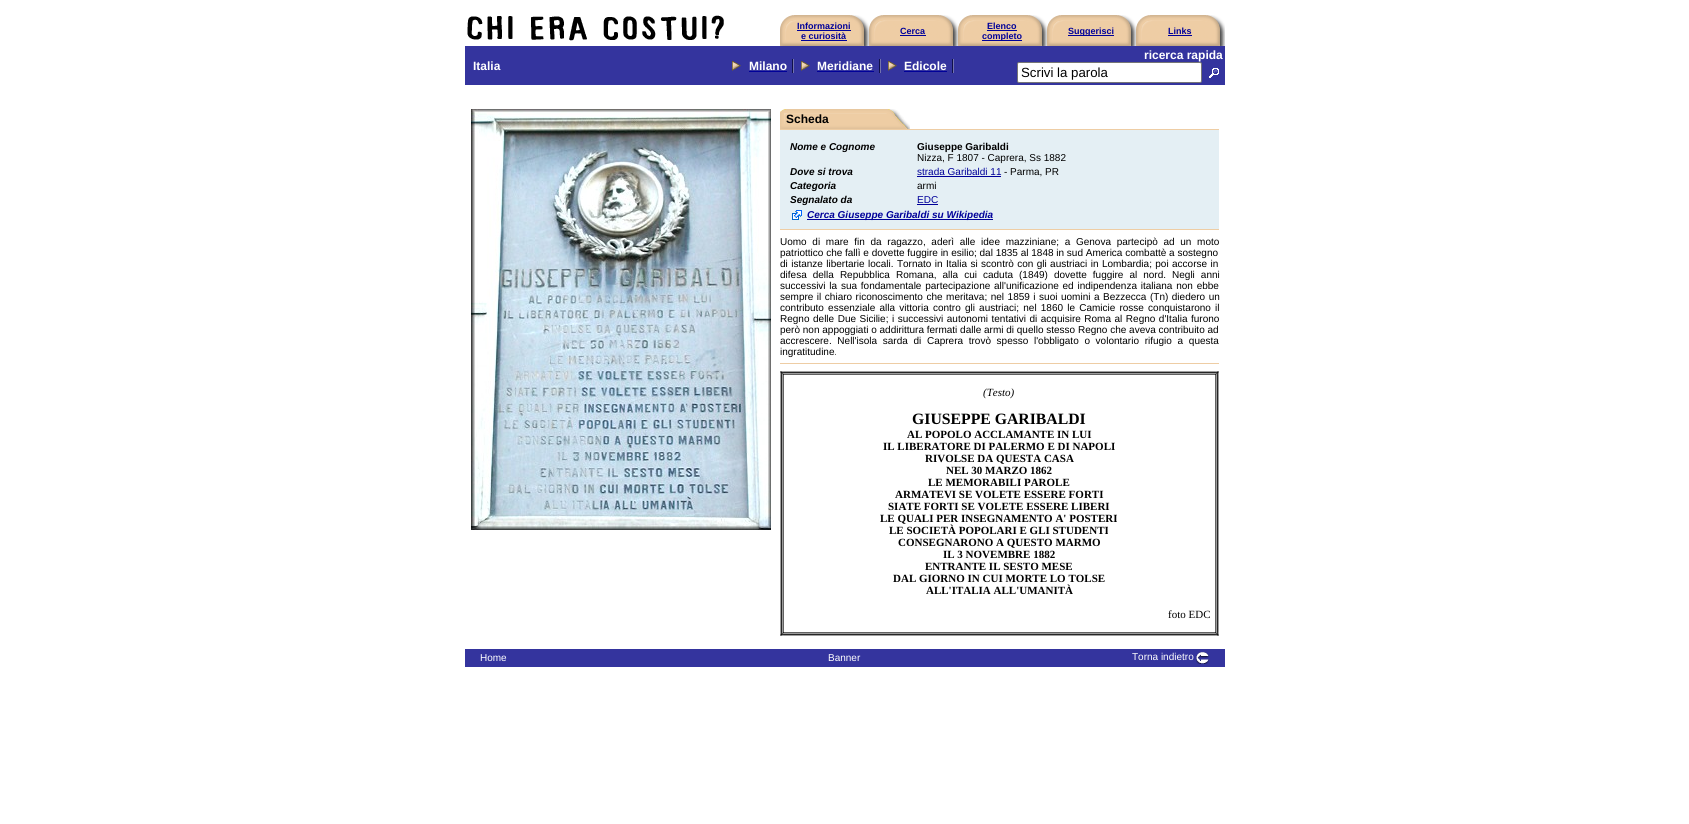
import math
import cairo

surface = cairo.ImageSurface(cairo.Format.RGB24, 1689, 824)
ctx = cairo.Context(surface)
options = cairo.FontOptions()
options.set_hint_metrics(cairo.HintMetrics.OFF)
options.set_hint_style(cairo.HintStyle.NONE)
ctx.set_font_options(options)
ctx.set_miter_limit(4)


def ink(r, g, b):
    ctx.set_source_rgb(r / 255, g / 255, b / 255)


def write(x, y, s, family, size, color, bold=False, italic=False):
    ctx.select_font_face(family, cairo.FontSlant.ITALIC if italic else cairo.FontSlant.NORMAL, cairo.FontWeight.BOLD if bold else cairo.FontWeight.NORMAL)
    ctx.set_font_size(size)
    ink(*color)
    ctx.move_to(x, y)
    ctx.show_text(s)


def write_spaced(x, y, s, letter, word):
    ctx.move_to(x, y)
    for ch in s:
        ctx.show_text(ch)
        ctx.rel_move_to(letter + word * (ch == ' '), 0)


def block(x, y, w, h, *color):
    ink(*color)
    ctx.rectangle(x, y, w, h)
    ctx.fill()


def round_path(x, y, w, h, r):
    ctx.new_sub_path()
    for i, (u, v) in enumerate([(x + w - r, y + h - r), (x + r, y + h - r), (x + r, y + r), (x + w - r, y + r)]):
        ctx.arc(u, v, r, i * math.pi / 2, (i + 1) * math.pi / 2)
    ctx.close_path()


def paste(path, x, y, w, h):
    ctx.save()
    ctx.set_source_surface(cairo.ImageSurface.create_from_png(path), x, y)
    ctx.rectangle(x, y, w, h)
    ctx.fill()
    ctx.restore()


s1 = dict(family="Liberation Sans", size=9, color=(0, 0, 153), bold=True)
s2 = dict(family="Liberation Sans", size=12, color=(255, 255, 255), bold=True)
s3 = dict(family="Liberation Sans", size=13.25, color=(0, 0, 0))
s4 = dict(family="Liberation Sans", size=12, color=(0, 0, 0), bold=True)
s5 = dict(family="Liberation Sans", size=10, color=(0, 0, 0), bold=True, italic=True)
s6 = dict(family="Liberation Sans", size=10, color=(0, 0, 0), bold=True)
s7 = dict(family="Liberation Sans", size=10, color=(0, 0, 0))
s8 = dict(family="Liberation Sans", size=10, color=(0, 0, 153))
s9 = dict(family="Liberation Sans", size=10, color=(0, 0, 153), bold=True, italic=True)
s10 = dict(family="Liberation Serif", size=11, color=(0, 0, 0), italic=True)
s11 = dict(family="Liberation Serif", size=15.75, color=(0, 0, 0), bold=True)
s12 = dict(family="Liberation Serif", size=11, color=(0, 0, 0), bold=True)
s13 = dict(family="Liberation Serif", size=11, color=(0, 0, 0))
s14 = dict(family="Liberation Sans", size=10, color=(255, 255, 255))

ink(255, 255, 255)
ctx.paint()
paste("pic1.png", 467, 15, 257, 26)
paste("pic2.png", 780, 15, 89, 31)
write(797, 29, "Informazioni", **s1)
block(797, 30, 54, 1, 0, 0, 153)
write(801, 39, "e curiosità", **s1)
block(801, 40, 46, 1, 0, 0, 153)
paste("pic2.png", 869, 15, 89, 31)
write(900, 34, "Cerca", **s1)
block(900, 35, 26, 1, 0, 0, 153)
paste("pic2.png", 958, 15, 89, 31)
write(987, 29, "Elenco", **s1)
block(987, 30, 30, 1, 0, 0, 153)
block(982, 40, 40, 1, 0, 0, 153)
write(982, 39, "completo", **s1)
paste("pic2.png", 1047, 15, 89, 31)
block(1068, 35, 46, 1, 0, 0, 153)
write(1068, 34, "Suggerisci", **s1)
paste("pic2.png", 1136, 15, 89, 31)
write(1168, 34, "Links", **s1)
block(1168, 35, 24, 1, 0, 0, 153)
block(465, 46, 760, 39, 52, 52, 158)
write(473, 70, "Italia", **s2)
paste("pic3.png", 732, 61, 9, 10)
write(749, 70, "Milano", **s2)
block(749, 71, 38, 1, 0, 0, 153)
paste("pic4.png", 792, 59, 2, 14)
paste("pic3.png", 801, 61, 9, 10)
write(817, 70, "Meridiane", **s2)
block(817, 71, 57, 1, 0, 0, 153)
paste("pic4.png", 879, 59, 2, 14)
paste("pic3.png", 888, 61, 9, 10)
write(904, 70, "Edicole", **s2)
block(904, 71, 43, 1, 0, 0, 153)
paste("pic4.png", 952, 59, 2, 14)
write(1144, 59, "ricerca rapida", **s2)
round_path(1017.5, 62.5, 184, 20, 1.5)
ctx.fill_preserve()
ink(118, 118, 118)
ctx.set_line_width(1)
ctx.stroke()
write(1021, 77, "Scrivi la parola", **s3)
paste("pic5.png", 1209, 68, 10, 10)
paste("pic6.png", 471, 109, 300, 421)
paste("pic7.png", 780, 109, 130, 20)
write(786, 123, "Scheda", **s4)
block(780, 129, 439, 1, 238, 205, 164)
block(780, 130, 439, 99, 228, 239, 244)
write(790, 150, "Nome e Cognome", **s5)
write(917, 150, "Giuseppe Garibaldi", **s6)
write(917, 161, "Nizza, F 1807 - Caprera, Ss 1882", **s7)
write(790, 175, "Dove si trova", **s5)
write(917, 175, "strada Garibaldi 11", **s8)
block(917, 176, 84, 1, 0, 0, 153)
write(1004, 175, "- Parma, PR", **s7)
write(790, 189, "Categoria", **s5)
write(917, 189, "armi", **s7)
write(790, 203, "Segnalato da", **s5)
write(917, 203, "EDC", **s8)
block(917, 204, 21, 1, 0, 0, 153)
paste("pic8.png", 792, 210, 10, 10)
block(807, 219, 186, 1, 0, 0, 153)
write(807, 218, "Cerca Giuseppe Garibaldi su Wikipedia", **s9)
block(780, 229, 439, 1, 238, 205, 164)
ctx.select_font_face("Liberation Sans")
ink(0, 0, 0)
write_spaced(780, 245, "Uomo di mare fin da ragazzo, aderì alle idee mazziniane; a Genova partecipò ad un moto", 0, 2.9)
write(780, 256, "patriottico che fallì e dovette fuggire in esilio; dal 1835 al 1848 in sud America combattè a sostegno", **s7)
write_spaced(780, 267, "di istanze libertarie locali. Tornato in Italia si scontrò con gli austriaci in Lombardia; poi accorse in", 0, 0.6)
write_spaced(780, 278, "difesa della Repubblica Romana, alla cui caduta (1849) dovette fuggire al nord. Negli anni", 0, 3.25)
write_spaced(780, 289, "successivi la sua fondamentale partecipazione all'unificazione ed indipendenza italiana non ebbe", 0, 1)
write_spaced(780, 300, "sempre il chiaro riconoscimento che meritava; nel 1859 i suoi uomini a Bezzecca (Tn) diedero un", 0, 0.75)
write_spaced(780, 311, "contributo essenziale alla vittoria contro gli austriaci; nel 1860 le Camicie rosse conquistarono il", 0, 1.4)
write_spaced(780, 322, "Regno delle Due Sicilie; i successivi autonomi tentativi di acquisire Roma al Regno d'Italia furono", 0, 0.75)
write(780, 333, "però non appoggiati o addirittura fermati dalle armi di quello stesso Regno che aveva contribuito ad", **s7)
write_spaced(780, 344, "accrescere. Nell'isola sarda di Caprera trovò spesso l'obbligato o volontario rifugio a questa", 0, 2.9)
write(780, 355, "ingratitudine.", **s7)
block(780, 363, 439, 1, 238, 205, 164)
paste("pic9.png", 780, 371, 4, 4)
paste("pic10.png", 784, 371, 431, 4)
paste("pic11.png", 1215, 371, 4, 4)
paste("pic12.png", 780, 375, 4, 257)
write(983, 396, "(Testo)", **s10)
write(912, 424, "GIUSEPPE GARIBALDI", **s11)
write(907, 438, "AL POPOLO ACCLAMANTE IN LUI", **s12)
write(883, 450, "IL LIBERATORE DI PALERMO E DI NAPOLI", **s12)
write(925, 462, "RIVOLSE DA QUESTA CASA", **s12)
write(946, 474, "NEL 30 MARZO 1862", **s12)
write(928, 486, "LE MEMORABILI PAROLE", **s12)
write(895, 498, "ARMATEVI SE VOLETE ESSERE FORTI", **s12)
write(888, 510, "SIATE FORTI SE VOLETE ESSERE LIBERI", **s12)
write(880, 522, "LE QUALI PER INSEGNAMENTO A' POSTERI", **s12)
write(889, 534, "LE SOCIETÀ POPOLARI E GLI STUDENTI", **s12)
write(898, 546, "CONSEGNARONO A QUESTO MARMO", **s12)
write(943, 558, "IL 3 NOVEMBRE 1882", **s12)
write(925, 570, "ENTRANTE IL SESTO MESE", **s12)
write(893, 582, "DAL GIORNO IN CUI MORTE LO TOLSE", **s12)
write(926, 594, "ALL'ITALIA ALL'UMANITÀ", **s12)
write(1168, 618, "foto EDC", **s13)
paste("pic13.png", 1215, 375, 4, 257)
paste("pic14.png", 780, 632, 4, 4)
paste("pic15.png", 784, 632, 431, 4)
paste("pic16.png", 1215, 632, 4, 4)
block(465, 649, 760, 18, 52, 52, 158)
write(480, 661, "Home", **s14)
write(828, 661, "Banner", **s14)
write(1132, 660, "Torna indietro", **s14)
paste("pic17.png", 1196, 652, 13, 12)
surface.write_to_png("screenshot.png")
